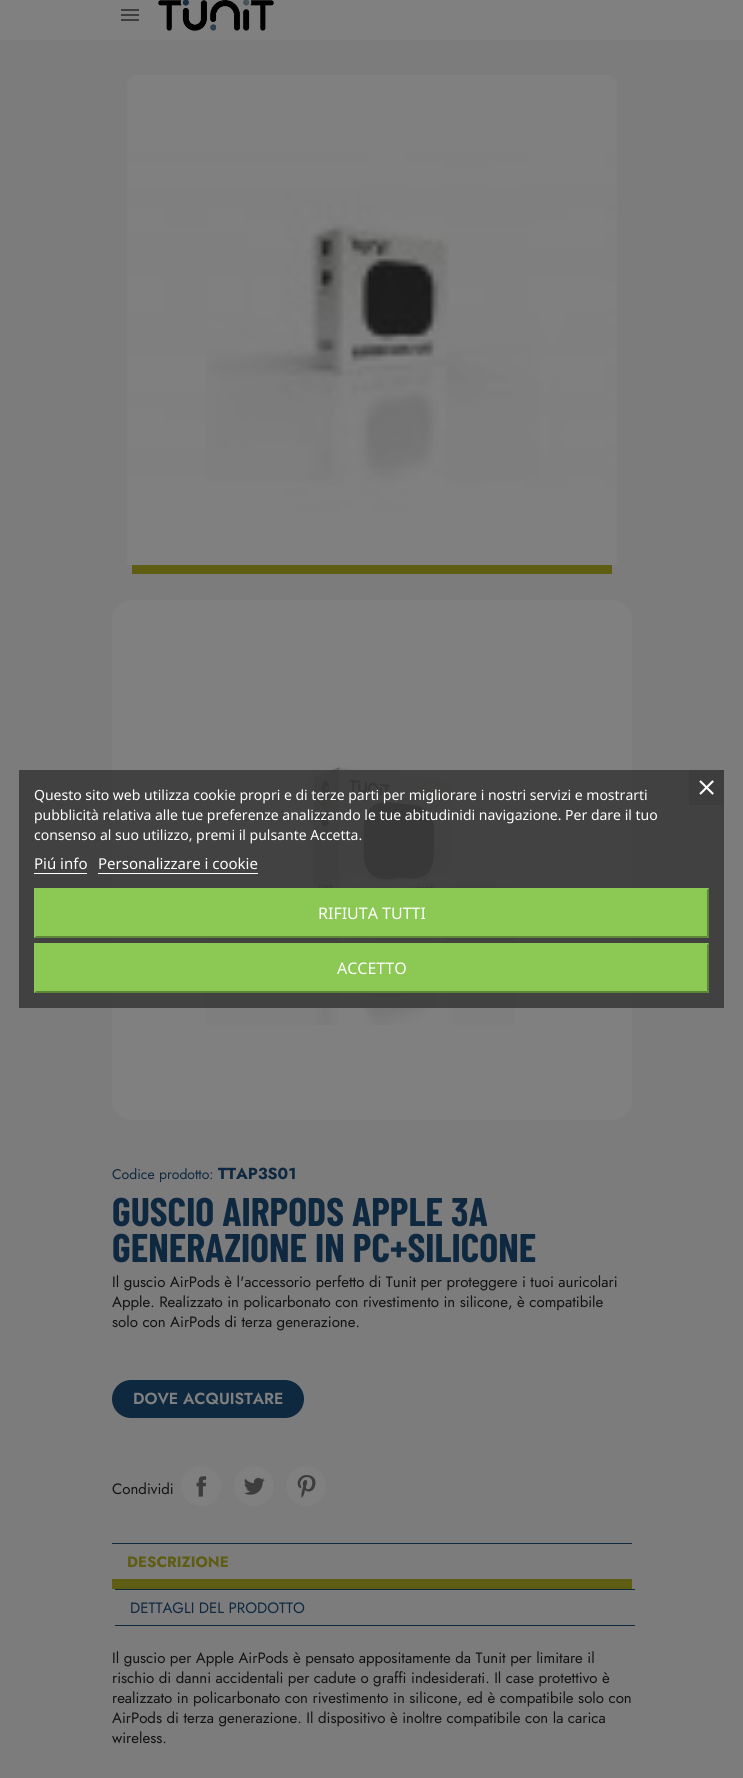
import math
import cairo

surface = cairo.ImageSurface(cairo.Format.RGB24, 743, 1778)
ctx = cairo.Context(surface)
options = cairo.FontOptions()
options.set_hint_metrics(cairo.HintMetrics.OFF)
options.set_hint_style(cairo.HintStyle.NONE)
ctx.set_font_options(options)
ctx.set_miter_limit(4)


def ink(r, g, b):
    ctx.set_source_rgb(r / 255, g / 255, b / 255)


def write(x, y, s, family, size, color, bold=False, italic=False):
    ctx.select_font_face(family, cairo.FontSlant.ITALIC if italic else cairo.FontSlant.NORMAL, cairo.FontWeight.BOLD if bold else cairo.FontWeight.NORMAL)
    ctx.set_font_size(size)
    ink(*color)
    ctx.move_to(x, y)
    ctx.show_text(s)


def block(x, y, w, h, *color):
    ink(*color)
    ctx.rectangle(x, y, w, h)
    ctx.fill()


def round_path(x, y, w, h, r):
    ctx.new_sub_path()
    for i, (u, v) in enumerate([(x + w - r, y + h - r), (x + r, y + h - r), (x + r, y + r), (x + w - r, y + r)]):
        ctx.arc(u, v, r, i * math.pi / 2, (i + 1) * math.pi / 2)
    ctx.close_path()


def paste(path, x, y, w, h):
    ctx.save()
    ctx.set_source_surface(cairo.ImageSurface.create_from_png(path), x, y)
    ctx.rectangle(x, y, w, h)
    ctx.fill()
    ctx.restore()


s1 = dict(family="Noto Sans", size=14, color=(255, 255, 255))
s2 = dict(family="Noto Sans", size=15, color=(255, 255, 255))
s3 = dict(family="Noto Sans", size=16, color=(255, 255, 255))
s4 = dict(family="Jost", size=14, color=(14, 40, 63))
s5 = dict(family="Jost", size=16, color=(14, 40, 63), bold=True)
s6 = dict(family="Barlow Condensed", size=40, color=(14, 40, 63), bold=True)
s7 = dict(family="Jost", size=15, color=(18, 18, 18))
s8 = dict(family="Jost SemiBold", size=16, color=(128, 128, 128))
s9 = dict(family="Jost", size=15, color=(95, 92, 19), bold=True)
s10 = dict(family="Jost", size=15, color=(14, 40, 63))

ink(128, 128, 128)
ctx.paint()
paste("pic1.png", 121, 9, 18, 12)
paste("pic2.png", 158, 0, 116, 31)
block(0, 40, 743, 1738, 124, 124, 124)
ink(128, 128, 128)
round_path(112, 600, 520, 520, 20)
ctx.fill()
paste("pic5.png", 206, 766, 309, 259)
ctx.set_source_rgba(0.231, 0.231, 0.231, 0.9)
ctx.rectangle(19, 770, 705, 238)
ctx.fill()
write(34, 800, "Questo sito web utilizza cookie propri e di terze parti per migliorare i nostri servizi e mostrarti", **s1)
write(34, 820, "pubblicità relativa alle tue preferenze analizzando le tue abitudinidi navigazione. Per dare il tuo", **s1)
write(34, 840, "consenso al suo utilizzo, premi il pulsante Accetta.", **s1)
write(34, 869, "Piú info", **s2)
block(34, 873, 53, 1, 255, 255, 255)
write(98, 869, "Personalizzare i cookie", **s2)
block(98, 873, 160, 1, 255, 255, 255)
block(34, 888, 675, 50, 139, 201, 84)
ink(93, 134, 56)
ctx.new_path()
ctx.move_to(709, 888)
ctx.line_to(709, 938)
ctx.line_to(707, 936)
ctx.line_to(707, 890)
ctx.close_path()
ctx.fill()
ctx.new_path()
ctx.move_to(709, 938)
ctx.line_to(34, 938)
ctx.line_to(36, 936)
ctx.line_to(707, 936)
ctx.close_path()
ctx.fill()
ink(139, 201, 84)
ctx.new_path()
ctx.move_to(34, 938)
ctx.line_to(34, 888)
ctx.line_to(36, 890)
ctx.line_to(36, 936)
ctx.close_path()
ctx.fill()
write(318, 919, "RIFIUTA TUTTI", **s3)
block(34, 943, 675, 50, 139, 201, 84)
ink(93, 134, 56)
ctx.new_path()
ctx.move_to(709, 943)
ctx.line_to(709, 993)
ctx.line_to(707, 991)
ctx.line_to(707, 945)
ctx.close_path()
ctx.fill()
ctx.new_path()
ctx.move_to(709, 993)
ctx.line_to(34, 993)
ctx.line_to(36, 991)
ctx.line_to(707, 991)
ctx.close_path()
ctx.fill()
ink(139, 201, 84)
ctx.new_path()
ctx.move_to(34, 993)
ctx.line_to(34, 943)
ctx.line_to(36, 945)
ctx.line_to(36, 991)
ctx.close_path()
ctx.fill()
write(337, 974, "ACCETTO", **s3)
block(689, 770, 35, 35, 61, 61, 61)
paste("pic3.png", 699, 780, 15, 15)
paste("pic4.png", 127, 75, 490, 490)
block(132, 565, 480, 9, 95, 92, 19)
write(112, 1179, "Codice prodotto:", **s4)
write(218, 1179, "TTAP3S01", **s5)
write(112, 1226, "GUSCIO AIRPODS APPLE 3A", **s6)
write(112, 1262, "GENERAZIONE IN PC+SILICONE", **s6)
write(112, 1287, "Il guscio AirPods è l'accessorio perfetto di Tunit per proteggere i tuoi auricolari", **s7)
write(112, 1307, "Apple. Realizzato in policarbonato con rivestimento in silicone, è compatibile", **s7)
write(112, 1327, "solo con AirPods di terza generazione.", **s7)
ink(14, 40, 63)
round_path(112, 1380, 192, 38, 19)
ctx.fill()
write(133, 1404, "DOVE ACQUISTARE", **s8)
write(112, 1494, "Condividi", **s7)
ink(128, 128, 128)
ctx.new_path()
ctx.arc(201, 1486, 20, 0, 2 * math.pi)
ctx.fill()
paste("pic6.png", 196, 1476, 11, 21)
ctx.arc(254, 1486, 20, 0, 2 * math.pi)
ctx.fill()
paste("pic7.png", 244, 1477, 21, 18)
ctx.arc(306, 1486, 20, 0, 2 * math.pi)
ctx.fill()
paste("pic8.png", 297, 1475, 19, 23)
block(112, 1543, 520, 1, 14, 40, 63)
block(112, 1579, 520, 10, 95, 92, 19)
write(127, 1567, "DESCRIZIONE", **s9)
block(115, 1589, 520, 1, 14, 40, 63)
block(115, 1625, 520, 1, 14, 40, 63)
write(130, 1613, "DETTAGLI DEL PRODOTTO", **s10)
write(112, 1663, "Il guscio per Apple AirPods è pensato appositamente da Tunit per limitare il", **s7)
write(112, 1683, "rischio di danni accidentali per cadute o graffi indesiderati. Il case protettivo è", **s7)
write(112, 1703, "realizzato in policarbonato con rivestimento in silicone, ed è compatibile solo con", **s7)
write(112, 1723, "AirPods di terza generazione. Il dispositivo è inoltre compatibile con la carica", **s7)
write(112, 1743, "wireless.", **s7)
surface.write_to_png("screenshot.png")
